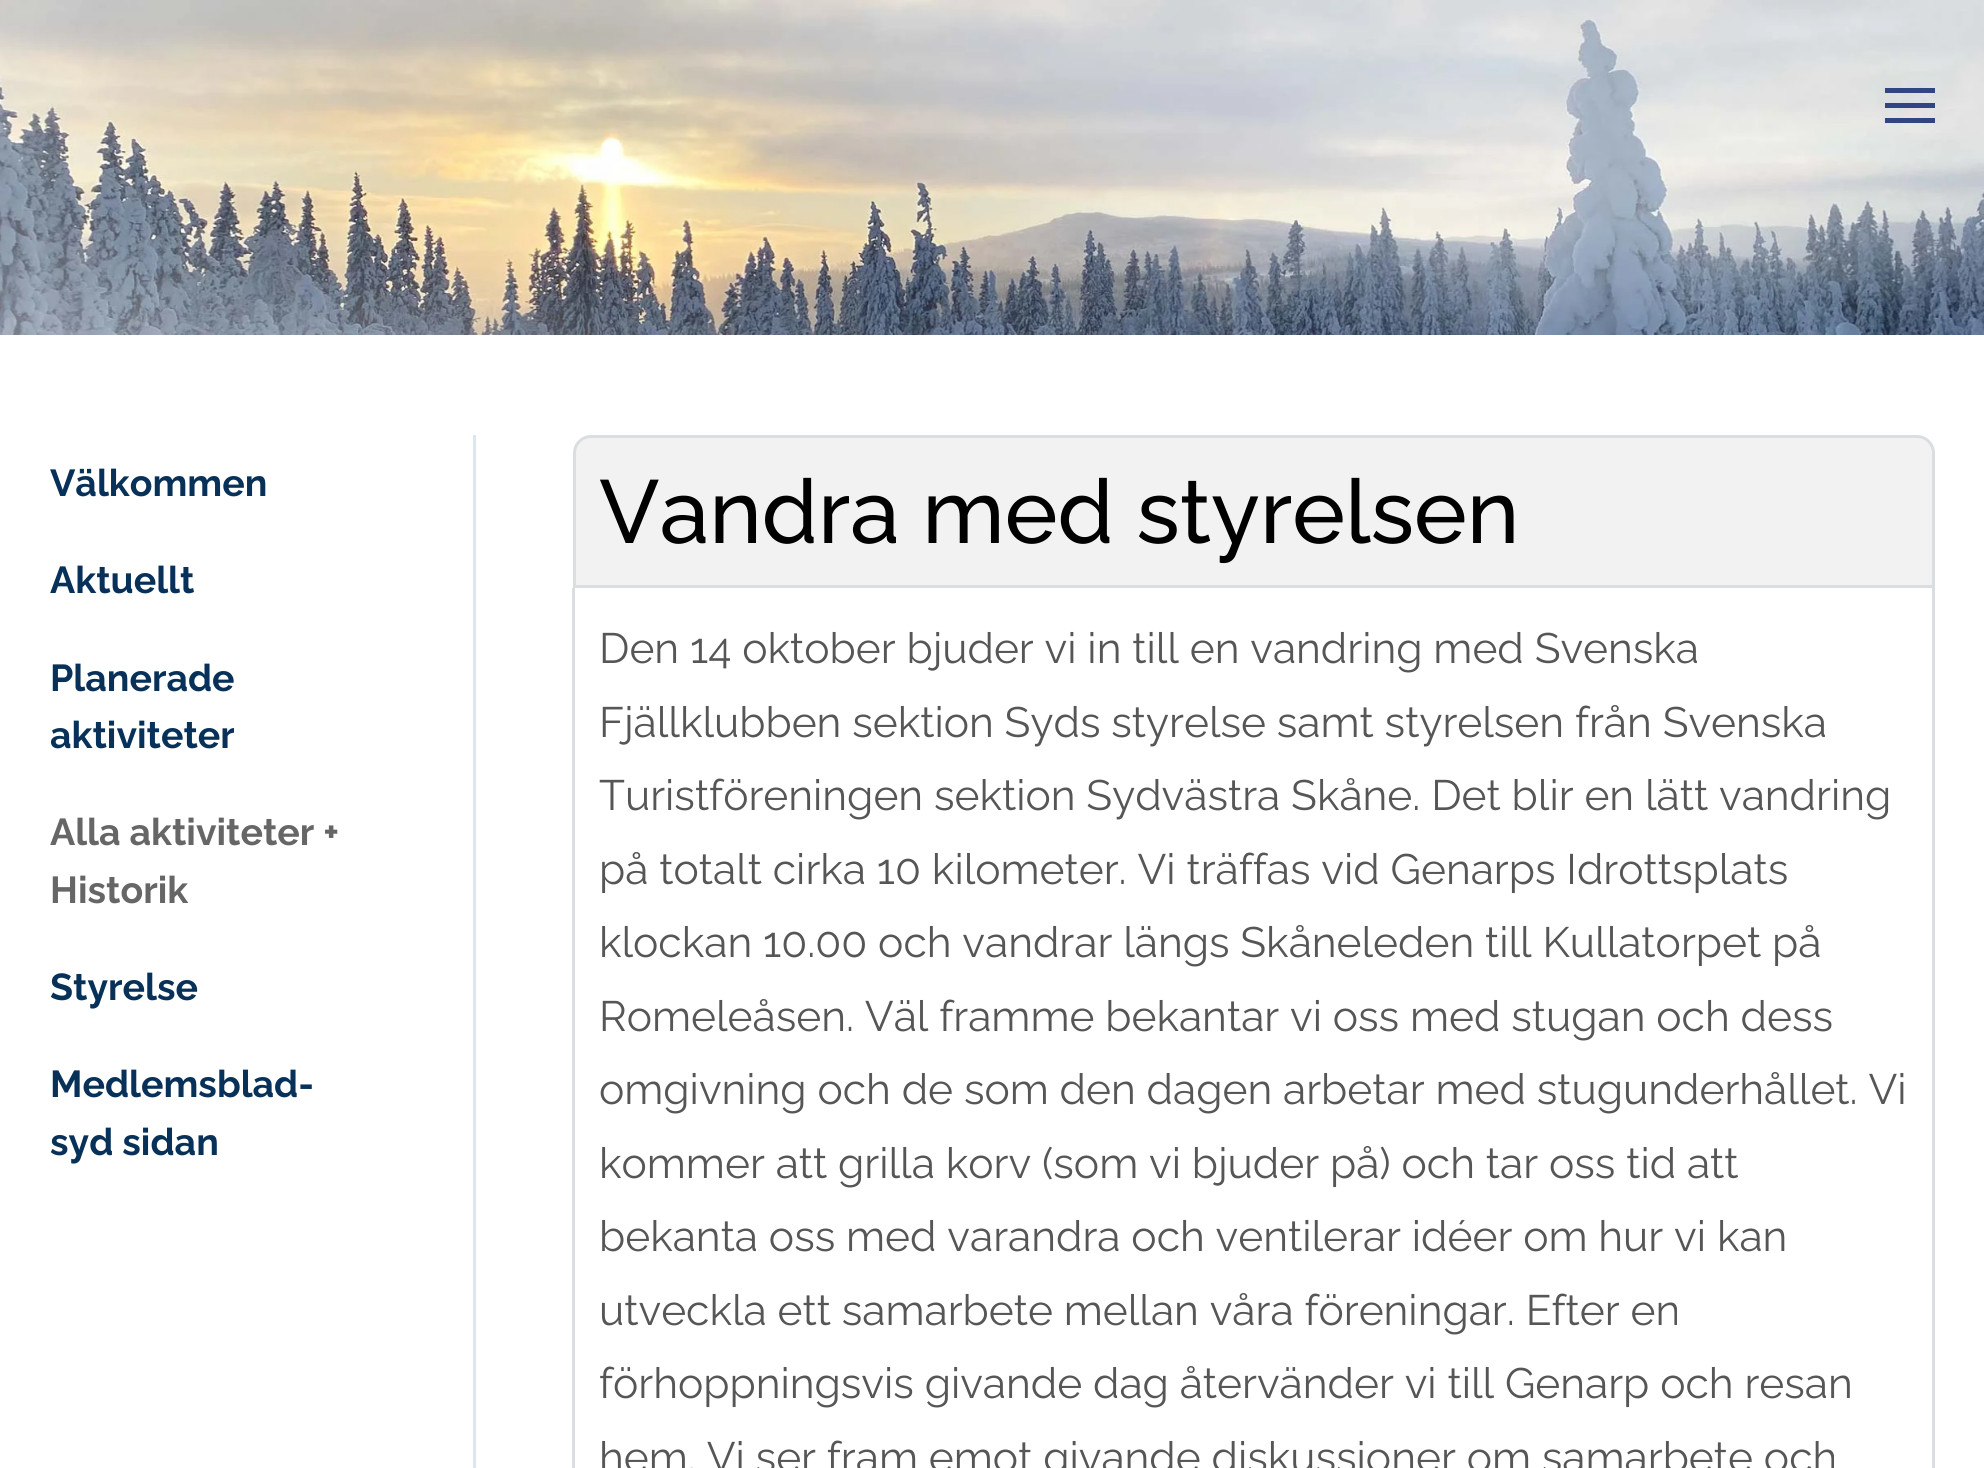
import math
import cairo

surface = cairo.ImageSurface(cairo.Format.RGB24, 1984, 1468)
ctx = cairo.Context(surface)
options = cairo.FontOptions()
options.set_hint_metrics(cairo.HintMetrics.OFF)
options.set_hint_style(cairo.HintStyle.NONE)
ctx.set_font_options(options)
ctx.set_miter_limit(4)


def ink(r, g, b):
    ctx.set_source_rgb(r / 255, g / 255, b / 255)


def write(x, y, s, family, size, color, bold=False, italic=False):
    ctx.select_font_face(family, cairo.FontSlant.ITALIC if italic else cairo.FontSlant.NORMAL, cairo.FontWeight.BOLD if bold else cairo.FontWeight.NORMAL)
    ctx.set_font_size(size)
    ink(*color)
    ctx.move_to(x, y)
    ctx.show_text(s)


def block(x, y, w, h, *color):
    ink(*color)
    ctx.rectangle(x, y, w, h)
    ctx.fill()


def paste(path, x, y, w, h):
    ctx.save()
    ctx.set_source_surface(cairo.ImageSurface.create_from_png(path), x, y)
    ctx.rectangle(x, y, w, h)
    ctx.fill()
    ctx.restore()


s1 = dict(family="Raleway Thin", size=37.5, color=(8, 49, 89))
s2 = dict(family="Raleway Thin", size=37.5, color=(102, 102, 102))
s3 = dict(family="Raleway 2 Thin", size=89.25, color=(0, 0, 0))
s4 = dict(family="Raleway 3 Thin", size=42.5, color=(86, 86, 86))

ink(255, 255, 255)
ctx.paint()
paste("pic1.png", 0, 0, 1984, 335)
block(1885, 88, 50, 5, 49, 68, 131)
block(1885, 103, 50, 5, 49, 68, 131)
block(1885, 118, 50, 5, 49, 68, 131)
write(50, 496, "Välkommen", **s1)
write(50, 593, "Aktuellt", **s1)
write(50, 691, "Planerade", **s1)
write(50, 748, "aktiviteter", **s1)
write(50, 845, "Alla aktiviteter +", **s2)
write(50, 903, "Historik", **s2)
write(50, 1000, "Styrelse", **s1)
write(50, 1097, "Medlemsblad-", **s1)
write(50, 1155, "syd sidan", **s1)
block(473, 435, 3, 1033, 222, 230, 237)
ink(242, 242, 242)
ctx.new_path()
ctx.move_to(591, 436.5)
ctx.line_to(1917, 436.5)
ctx.curve_to(1926, 436.5, 1933.5, 444, 1933.5, 453)
ctx.line_to(1933.5, 586.5)
ctx.line_to(574.5, 586.5)
ctx.line_to(574.5, 453)
ctx.curve_to(574.5, 444, 582, 436.5, 591, 436.5)
ctx.close_path()
ctx.fill_preserve()
ink(219, 222, 225)
ctx.set_line_width(3)
ctx.stroke()
write(599, 543, "Vandra med styrelsen", **s3)
ink(219, 222, 225)
ctx.set_fill_rule(cairo.FillRule.EVEN_ODD)
ctx.new_path()
ctx.move_to(572, 588)
ctx.line_to(1935, 588)
ctx.line_to(1935, 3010)
ctx.curve_to(1935, 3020, 1927, 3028, 1918, 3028)
ctx.line_to(590, 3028)
ctx.curve_to(580, 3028, 572, 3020, 572, 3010)
ctx.close_path()
ctx.move_to(575, 588)
ctx.line_to(1932, 588)
ctx.line_to(1932, 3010)
ctx.curve_to(1932, 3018, 1926, 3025, 1918, 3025)
ctx.line_to(590, 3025)
ctx.curve_to(582, 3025, 575, 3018, 575, 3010)
ctx.close_path()
ctx.fill()
write(599, 663, "Den 14 oktober bjuder vi in till en vandring med Svenska", **s4)
write(599, 737, "Fjällklubben sektion Syds styrelse samt styrelsen från Svenska", **s4)
write(599, 810, "Turistföreningen sektion Sydvästra Skåne. Det blir en lätt vandring", **s4)
write(599, 884, "på totalt cirka 10 kilometer. Vi träffas vid Genarps Idrottsplats", **s4)
write(599, 957, "klockan 10.00 och vandrar längs Skåneleden till Kullatorpet på", **s4)
write(599, 1031, "Romeleåsen. Väl framme bekantar vi oss med stugan och dess", **s4)
write(599, 1104, "omgivning och de som den dagen arbetar med stugunderhållet. Vi", **s4)
write(599, 1178, "kommer att grilla korv (som vi bjuder på) och tar oss tid att", **s4)
write(599, 1251, "bekanta oss med varandra och ventilerar idéer om hur vi kan", **s4)
write(599, 1325, "utveckla ett samarbete mellan våra föreningar. Efter en", **s4)
write(599, 1398, "förhoppningsvis givande dag återvänder vi till Genarp och resan", **s4)
write(599, 1472, "hem. Vi ser fram emot givande diskussioner om samarbete och", **s4)
surface.write_to_png("screenshot.png")
